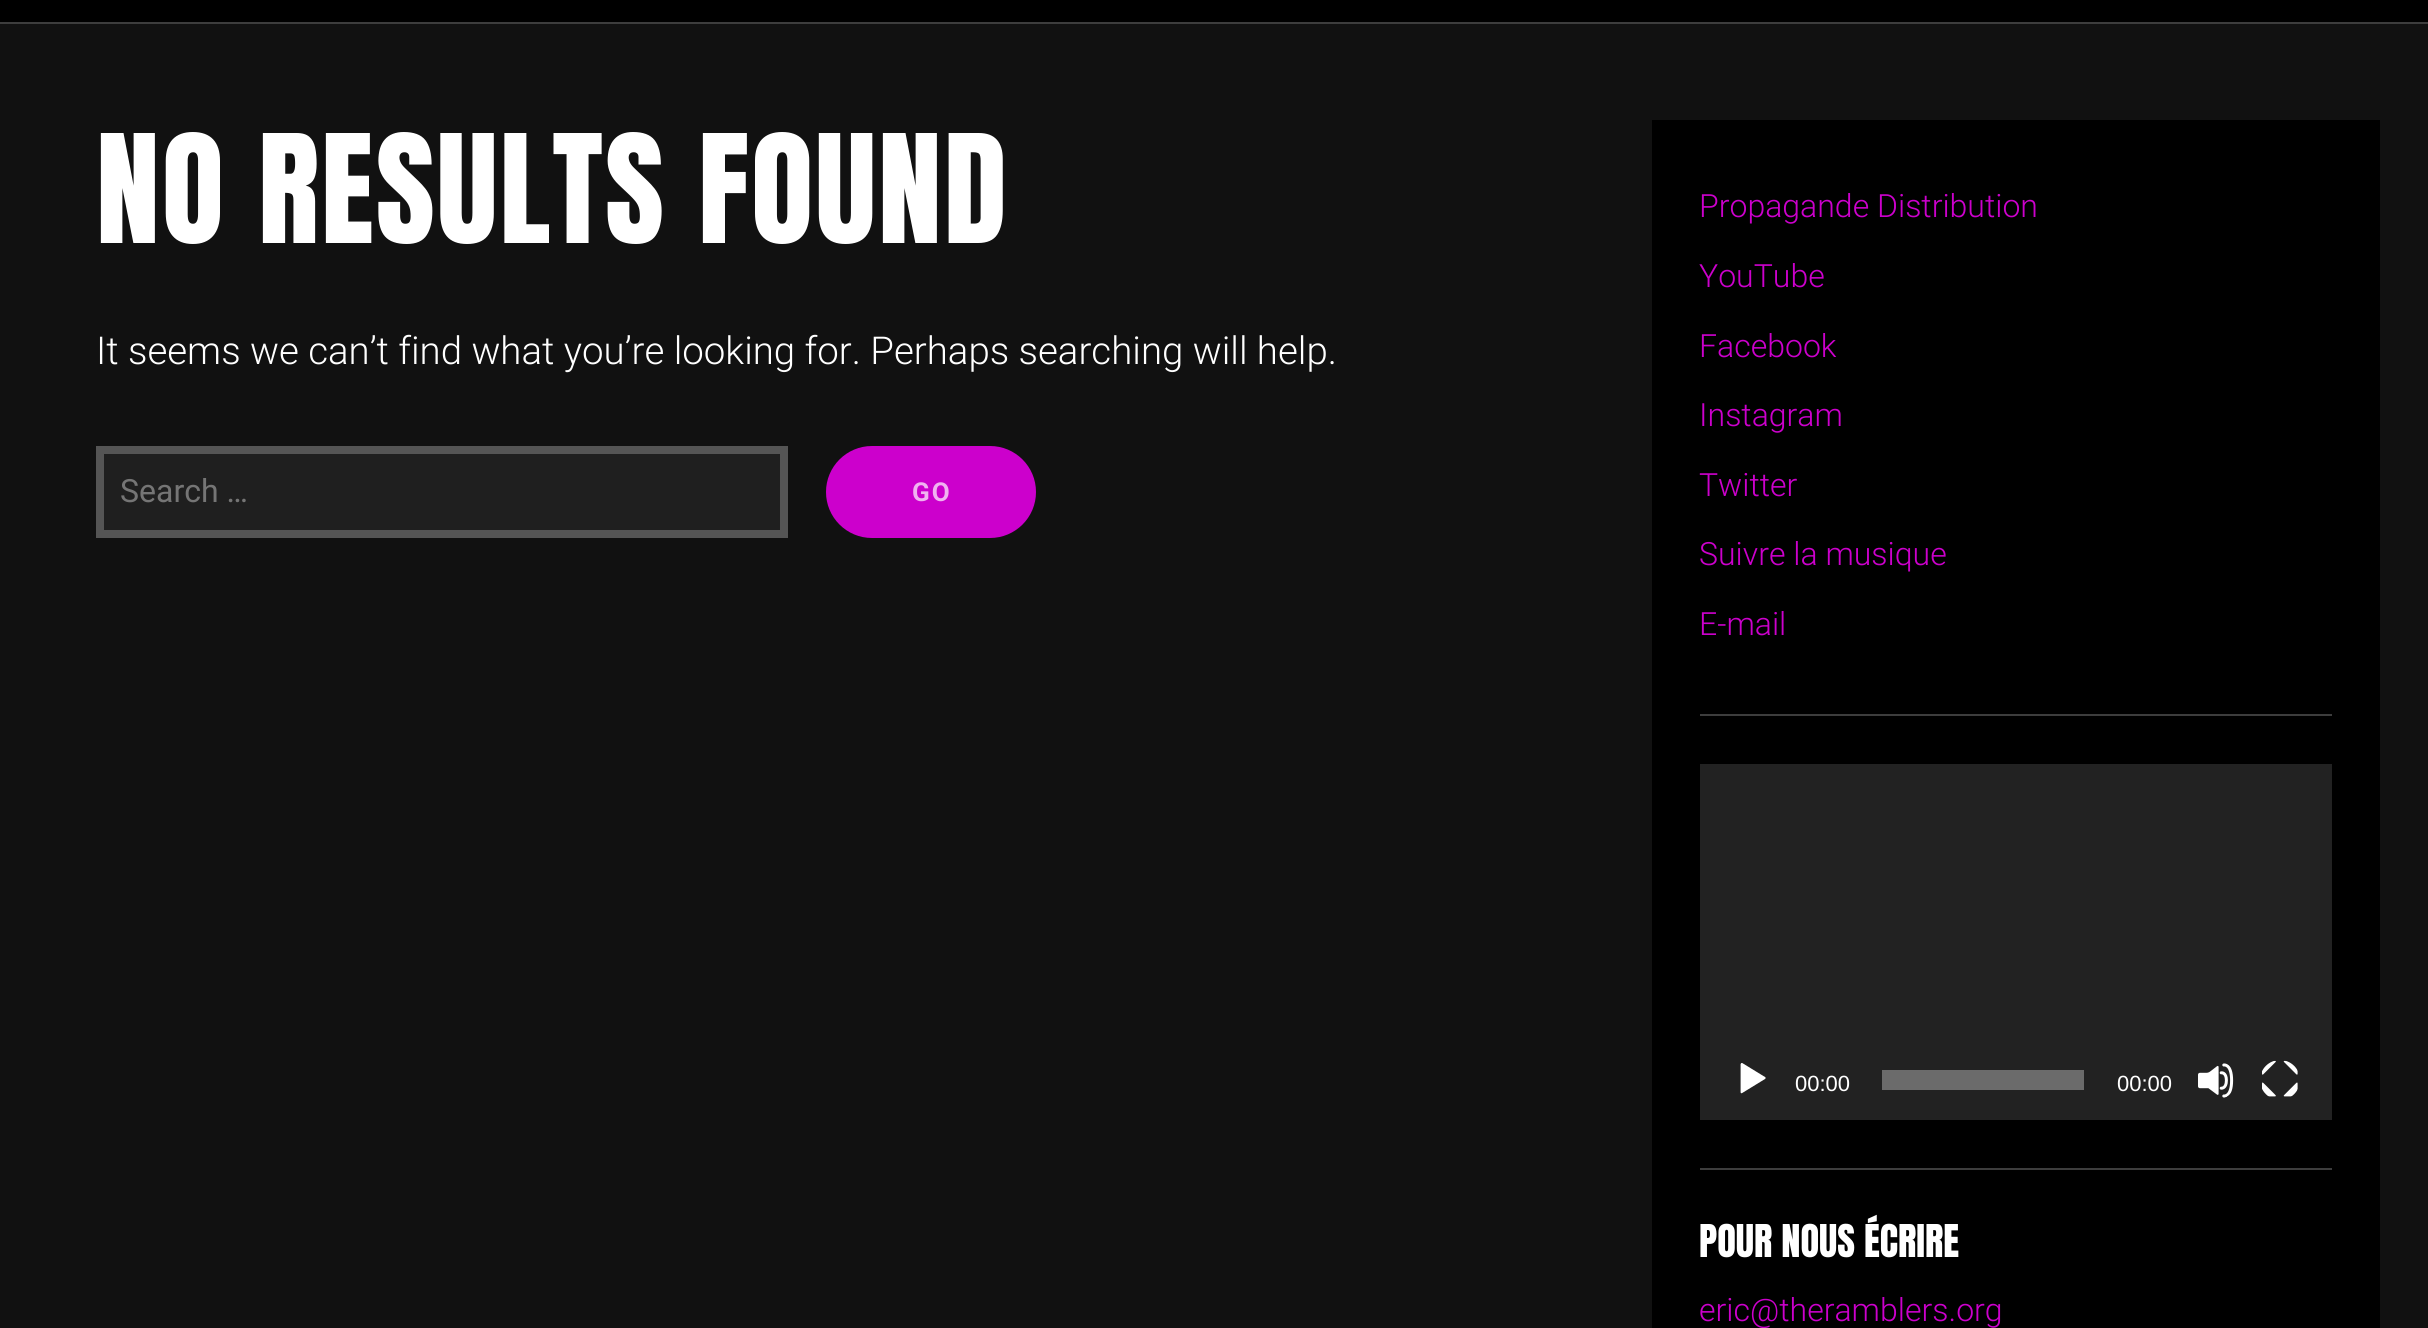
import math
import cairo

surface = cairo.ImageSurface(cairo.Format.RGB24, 2428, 1328)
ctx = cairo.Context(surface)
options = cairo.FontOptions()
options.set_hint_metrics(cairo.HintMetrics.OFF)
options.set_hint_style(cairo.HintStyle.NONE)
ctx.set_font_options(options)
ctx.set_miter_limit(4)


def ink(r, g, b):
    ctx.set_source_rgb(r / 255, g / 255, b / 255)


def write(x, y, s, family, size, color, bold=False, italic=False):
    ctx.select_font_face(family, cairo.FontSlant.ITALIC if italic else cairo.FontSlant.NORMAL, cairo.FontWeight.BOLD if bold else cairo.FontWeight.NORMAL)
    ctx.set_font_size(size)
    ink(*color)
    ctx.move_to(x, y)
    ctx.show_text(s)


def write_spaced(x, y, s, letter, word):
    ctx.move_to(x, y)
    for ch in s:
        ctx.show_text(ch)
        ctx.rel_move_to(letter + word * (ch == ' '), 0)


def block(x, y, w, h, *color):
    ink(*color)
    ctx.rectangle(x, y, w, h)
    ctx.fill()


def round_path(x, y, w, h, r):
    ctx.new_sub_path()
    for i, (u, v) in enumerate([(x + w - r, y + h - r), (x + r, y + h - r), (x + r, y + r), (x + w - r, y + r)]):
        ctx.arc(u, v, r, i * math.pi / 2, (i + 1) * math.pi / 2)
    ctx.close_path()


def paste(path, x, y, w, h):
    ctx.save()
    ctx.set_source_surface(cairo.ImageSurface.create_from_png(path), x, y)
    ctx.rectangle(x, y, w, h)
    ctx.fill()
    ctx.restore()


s1 = dict(family="Roboto Light", size=38.4, color=(255, 255, 255))
s2 = dict(family="Roboto", size=32, color=(117, 117, 117))
s3 = dict(family="Roboto Light", size=32, color=(204, 0, 204))
s4 = dict(family="Liberation Sans", size=22, color=(255, 255, 255))
s5 = dict(family="Anton", size=38.4, color=(255, 255, 255))

ink(17, 17, 17)
ctx.paint()
block(0, 0, 2428, 22, 0, 0, 0)
block(0, 22, 2428, 2, 61, 61, 61)
ctx.select_font_face("Anton")
ctx.set_font_size(128)
ink(255, 255, 255)
write_spaced(96, 243, "NO RESULTS FOUND", 2, 0)
write(96, 364, "It seems we can’t find what you’re looking for. Perhaps searching will help.", **s1)
ink(31, 31, 31)
ctx.rectangle(100, 450, 684, 84)
ctx.fill_preserve()
ink(85, 85, 85)
ctx.set_line_width(8)
ctx.stroke()
write(120, 502, "Search …", **s2)
ink(204, 0, 204)
round_path(826, 446, 210, 92, 46)
ctx.fill()
ctx.select_font_face("Roboto", cairo.FontSlant.NORMAL, cairo.FontWeight.BOLD)
ctx.set_font_size(26)
ink(240, 179, 240)
write_spaced(912, 501, "GO", 2, 0)
block(1652, 120, 728, 1208, 0, 0, 0)
block(1700, 714, 632, 2, 61, 61, 61)
write(1699, 217, "Propagande Distribution", **s3)
write(1699, 287, "YouTube", **s3)
write(1699, 357, "Facebook", **s3)
write(1699, 426, "Instagram", **s3)
write(1699, 496, "Twitter", **s3)
write(1699, 565, "Suivre la musique", **s3)
write(1699, 635, "E-mail", **s3)
block(1700, 1168, 632, 2, 61, 61, 61)
block(1700, 764, 632, 356, 34, 34, 34)
paste("pic1.png", 1740, 1063, 26, 31)
write(1795, 1091, "00:00", **s4)
block(1882, 1070, 202, 20, 107, 107, 107)
write(2117, 1091, "00:00", **s4)
paste("pic2.png", 2198, 1063, 36, 35)
paste("pic3.png", 2262, 1060, 36, 37)
write(1699, 1257, "POUR NOUS ÉCRIRE", **s5)
write(1699, 1321, "eric@theramblers.org", **s3)
surface.write_to_png("screenshot.png")
